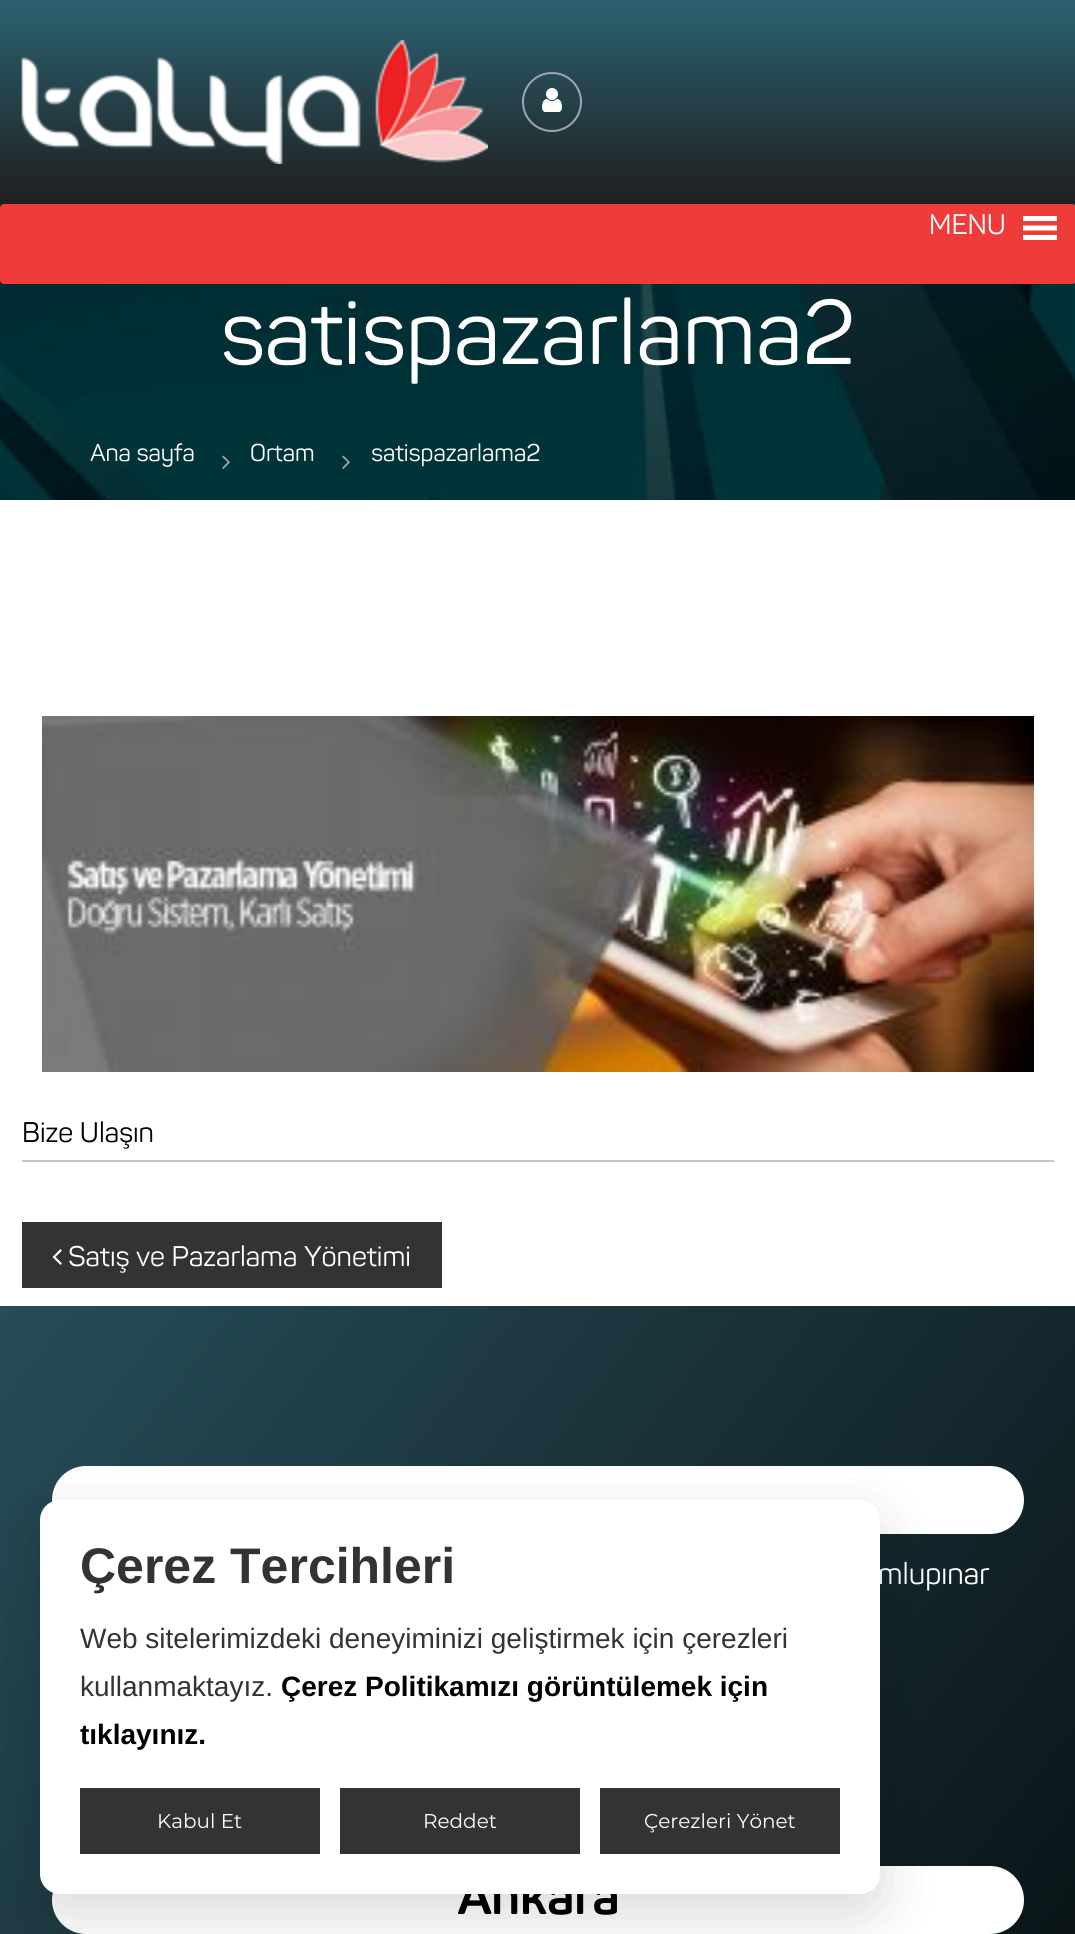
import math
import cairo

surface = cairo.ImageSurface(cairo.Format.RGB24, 1075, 1934)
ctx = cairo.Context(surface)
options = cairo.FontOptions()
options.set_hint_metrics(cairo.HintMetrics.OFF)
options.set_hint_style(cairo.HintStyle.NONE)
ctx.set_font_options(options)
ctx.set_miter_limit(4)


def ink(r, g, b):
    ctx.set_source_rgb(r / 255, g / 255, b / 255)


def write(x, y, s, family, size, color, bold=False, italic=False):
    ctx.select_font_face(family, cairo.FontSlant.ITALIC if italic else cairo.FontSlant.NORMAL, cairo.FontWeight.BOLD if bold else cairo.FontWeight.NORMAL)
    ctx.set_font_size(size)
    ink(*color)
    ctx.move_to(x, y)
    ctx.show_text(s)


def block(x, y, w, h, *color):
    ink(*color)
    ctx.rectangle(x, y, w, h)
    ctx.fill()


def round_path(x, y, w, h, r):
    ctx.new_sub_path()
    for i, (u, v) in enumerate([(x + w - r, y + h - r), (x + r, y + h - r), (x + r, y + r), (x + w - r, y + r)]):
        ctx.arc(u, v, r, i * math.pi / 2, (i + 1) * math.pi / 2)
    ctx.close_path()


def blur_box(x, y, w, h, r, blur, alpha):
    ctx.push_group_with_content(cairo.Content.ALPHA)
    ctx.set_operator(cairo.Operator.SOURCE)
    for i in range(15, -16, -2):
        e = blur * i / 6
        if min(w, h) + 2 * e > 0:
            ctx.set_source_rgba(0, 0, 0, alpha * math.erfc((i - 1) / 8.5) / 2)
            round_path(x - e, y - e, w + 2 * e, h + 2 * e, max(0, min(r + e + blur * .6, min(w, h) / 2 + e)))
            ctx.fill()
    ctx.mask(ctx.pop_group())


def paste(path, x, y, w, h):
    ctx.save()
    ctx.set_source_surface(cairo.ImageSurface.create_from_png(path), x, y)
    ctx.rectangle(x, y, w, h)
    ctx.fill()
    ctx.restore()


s1 = dict(family="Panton", size=28, color=(255, 255, 255))
s2 = dict(family="Panton", size=90, color=(255, 255, 255))
s3 = dict(family="Panton", size=24, color=(255, 255, 255))
s4 = dict(family="Panton", size=28, color=(0, 0, 0))
s5 = dict(family="Panton", size=30, color=(255, 255, 255))
s6 = dict(family="Panton", size=52, color=(0, 0, 0), bold=True)
s7 = dict(family="Liberation Sans", size=50, color=(51, 51, 51), bold=True)
s8 = dict(family="Liberation Sans", size=28, color=(51, 51, 51))
s9 = dict(family="Liberation Sans", size=28, color=(0, 0, 0), bold=True)
s10 = dict(family="Montserrat", size=20, color=(255, 255, 255))

ink(255, 255, 255)
ctx.paint()
gradient = cairo.LinearGradient(538, 0, 538, 204)
gradient.add_color_stop_rgba(0, 0.169, 0.38, 0.443, 1)
gradient.add_color_stop_rgba(1, 0.122, 0.122, 0.122, 1)
ctx.set_source(gradient)
ctx.rectangle(0, 0, 1075, 204)
ctx.fill()
paste("pic1.png", 21, 40, 467, 124)
ctx.arc(552, 102, 29, 0, 2 * math.pi)
ink(156, 166, 178)
ctx.stroke()
paste("pic2.png", 542, 88, 20, 24)
paste("pic3.png", 0, 204, 1075, 296)
ink(239, 59, 57)
round_path(0, 204, 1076, 80, 4)
ctx.fill()
write(929, 234, "MENU", **s1)
ctx.new_path()
ctx.move_to(1023, 240)
ctx.line_to(1057, 240)
ctx.line_to(1057, 235)
ctx.line_to(1023, 235)
ctx.close_path()
ctx.move_to(1023, 216)
ctx.line_to(1023, 221)
ctx.line_to(1057, 221)
ctx.line_to(1057, 216)
ctx.close_path()
ctx.move_to(1023, 230.5)
ctx.line_to(1057, 230.5)
ctx.line_to(1057, 225.5)
ctx.line_to(1023, 225.5)
ctx.close_path()
ctx.fill()
write(220, 364, "satispazarlama2", **s2)
write(90, 461, "Ana sayfa", **s3)
paste("pic4.png", 222, 455, 8, 14)
write(250, 461, "Ortam", **s3)
paste("pic4.png", 342, 455, 8, 14)
write(371, 461, "satispazarlama2", **s3)
block(22, 1160, 1032, 2, 197, 197, 197)
paste("pic5.png", 42, 716, 992, 356)
write(22, 1142, "Bize Ulaşın", **s4)
block(22, 1222, 420, 66, 51, 51, 51)
paste("pic6.png", 52, 1249, 10, 16)
write(68, 1266, "Satış ve Pazarlama Yönetimi", **s1)
gradient = cairo.LinearGradient(-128, 1470, 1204, 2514)
gradient.add_color_stop_rgba(0, 0.153, 0.302, 0.345, 1)
gradient.add_color_stop_rgba(1, 0, 0, 0, 1)
ctx.set_source(gradient)
ctx.rectangle(0, 1306, 1075, 628)
ctx.fill()
ink(255, 255, 255)
round_path(52, 1466, 972, 68, 34)
ctx.fill()
write(878, 1584, "mlupınar", **s5)
round_path(52, 1866, 972, 68, 34)
ctx.fill()
write(457, 1914, "Ankara", **s6)
ink(0, 0, 0)
blur_box(40, 1520, 840, 394, 20, 30, 0.15)
ink(255, 255, 255)
round_path(40, 1500, 840, 394, 20)
ctx.fill()
write(80, 1583, "Çerez Tercihleri", **s7)
write(80, 1648, "Web sitelerimizdeki deneyiminizi geliştirmek için çerezleri", **s8)
write(80, 1696, "kullanmaktayız.", **s8)
write(281, 1696, "Çerez Politikamızı görüntülemek için", **s9)
write(80, 1744, "tıklayınız.", **s9)
block(80, 1788, 240, 66, 51, 51, 51)
write(157, 1828, "Kabul Et", **s10)
block(340, 1788, 240, 66, 51, 51, 51)
write(423, 1828, "Reddet", **s10)
block(600, 1788, 240, 66, 51, 51, 51)
write(644, 1828, "Çerezleri Yönet", **s10)
surface.write_to_png("screenshot.png")
